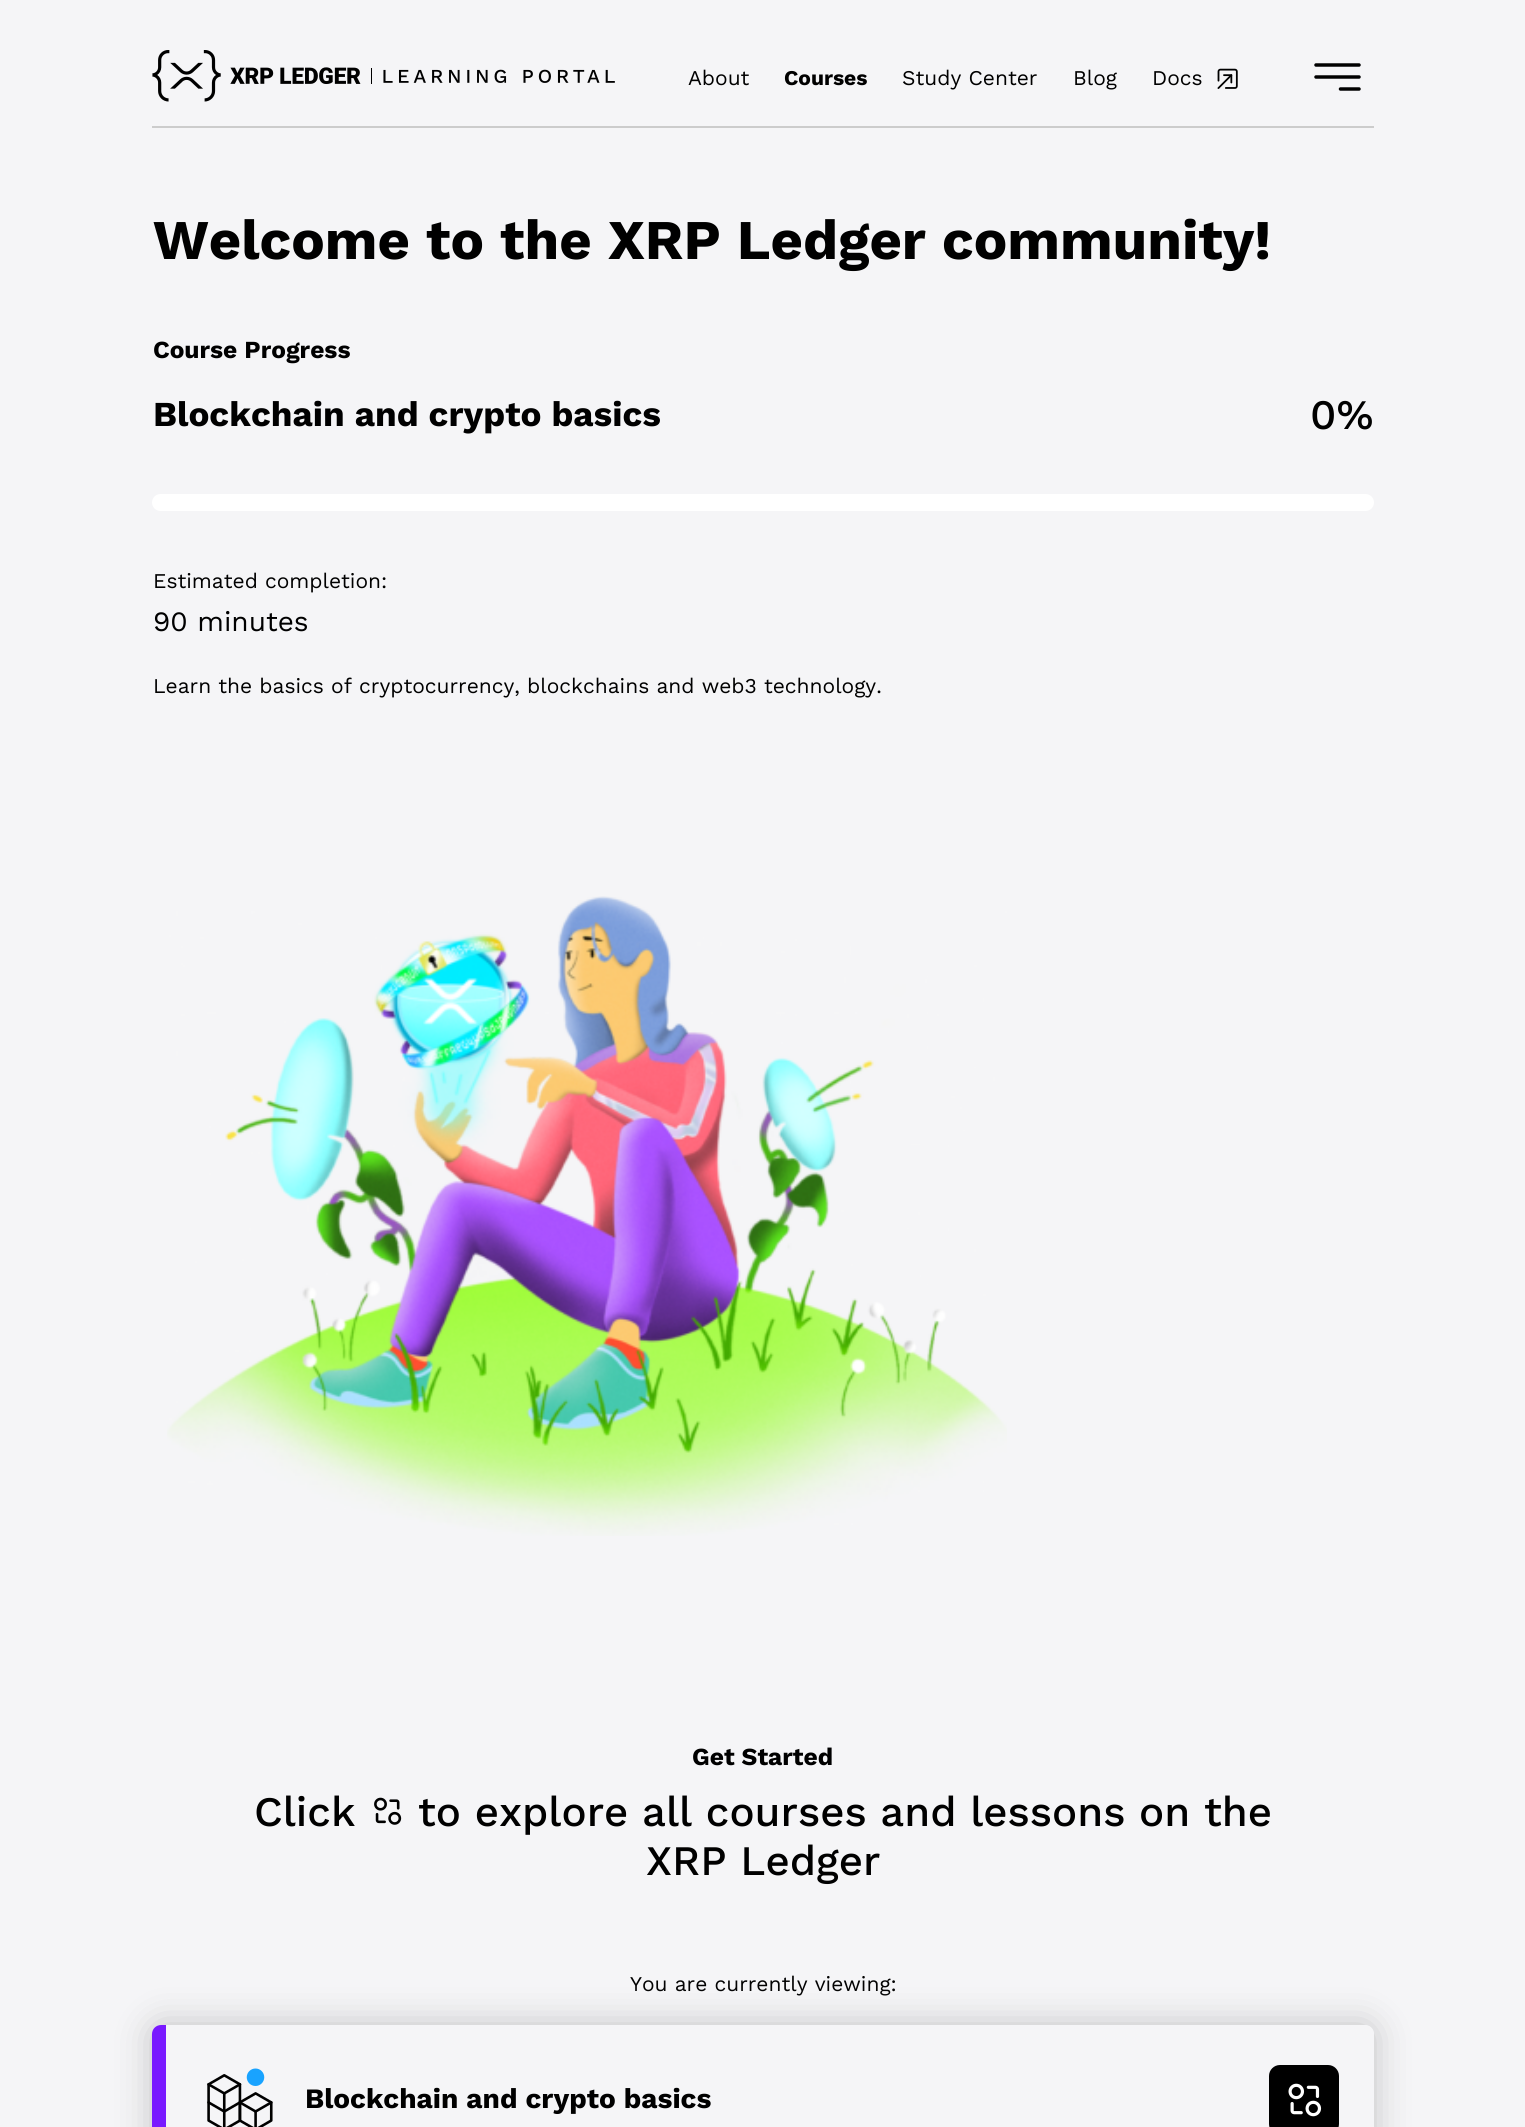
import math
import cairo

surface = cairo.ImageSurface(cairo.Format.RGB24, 1525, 2127)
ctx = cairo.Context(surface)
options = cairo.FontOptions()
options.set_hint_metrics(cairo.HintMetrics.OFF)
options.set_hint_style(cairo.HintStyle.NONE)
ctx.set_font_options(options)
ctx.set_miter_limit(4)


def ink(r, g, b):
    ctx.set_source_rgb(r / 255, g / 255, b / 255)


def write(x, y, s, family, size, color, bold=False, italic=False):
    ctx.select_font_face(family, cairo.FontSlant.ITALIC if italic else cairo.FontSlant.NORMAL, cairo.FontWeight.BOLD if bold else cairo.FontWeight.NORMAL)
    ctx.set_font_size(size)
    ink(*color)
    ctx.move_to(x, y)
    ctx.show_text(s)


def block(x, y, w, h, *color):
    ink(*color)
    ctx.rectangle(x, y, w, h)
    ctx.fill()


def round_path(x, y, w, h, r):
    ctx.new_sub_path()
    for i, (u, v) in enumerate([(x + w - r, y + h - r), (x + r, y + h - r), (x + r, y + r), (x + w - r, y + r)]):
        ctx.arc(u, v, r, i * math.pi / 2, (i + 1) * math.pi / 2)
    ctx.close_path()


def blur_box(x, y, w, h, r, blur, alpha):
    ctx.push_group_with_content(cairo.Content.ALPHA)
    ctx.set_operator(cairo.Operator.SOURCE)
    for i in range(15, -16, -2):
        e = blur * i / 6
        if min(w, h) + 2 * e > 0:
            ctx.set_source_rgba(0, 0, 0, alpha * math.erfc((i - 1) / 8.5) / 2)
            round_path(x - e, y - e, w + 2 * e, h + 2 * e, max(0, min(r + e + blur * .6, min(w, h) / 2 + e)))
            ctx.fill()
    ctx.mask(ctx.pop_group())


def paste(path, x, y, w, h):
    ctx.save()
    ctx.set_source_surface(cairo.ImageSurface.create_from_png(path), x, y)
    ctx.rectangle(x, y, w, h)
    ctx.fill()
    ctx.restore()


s1 = dict(family="Work Sans", size=21, color=(0, 0, 0))
s2 = dict(family="Work Sans", size=21, color=(0, 0, 0), bold=True)
s3 = dict(family="Work Sans", size=56, color=(0, 0, 0), bold=True)
s4 = dict(family="Work Sans", size=24.5, color=(0, 0, 0), bold=True)
s5 = dict(family="Work Sans", size=35, color=(0, 0, 0), bold=True)
s6 = dict(family="Work Sans Medium", size=42, color=(0, 0, 0))
s7 = dict(family="Work Sans", size=28, color=(0, 0, 0))
s8 = dict(family="Work Sans", size=28, color=(0, 0, 0), bold=True)

ink(245, 245, 247)
ctx.paint()
block(152, 126, 1222, 2, 204, 204, 204)
paste("pic1.png", 152, 50, 463, 52)
write(688, 85, "About", **s1)
write(784, 85, "Courses", **s2)
write(902, 85, "Study Center", **s1)
write(1073, 85, "Blog", **s1)
write(1152, 85, "Docs", **s1)
paste("pic2.png", 1217, 68, 21, 21)
ctx.new_path()
ctx.move_to(1316, 65)
ctx.line_to(1359, 65)
ctx.move_to(1316, 77)
ctx.line_to(1359, 77)
ctx.move_to(1340.5, 89)
ctx.line_to(1359, 89)
ctx.set_line_width(3.5)
ctx.set_line_cap(cairo.LineCap.ROUND)
ctx.set_line_join(cairo.LineJoin.ROUND)
ctx.stroke()
write(153, 259, "Welcome to the XRP Ledger community!", **s3)
write(153, 358, "Course Progress", **s4)
write(153, 426, "Blockchain and crypto basics", **s5)
write(1310, 429, "0%", **s6)
ink(255, 255, 255)
round_path(152, 494, 1222, 17, 8.5)
ctx.fill()
write(153, 588, "Estimated completion:", **s1)
write(153, 631, "90 minutes", **s7)
write(153, 693, "Learn the basics of cryptocurrency, blockchains and web3 technology.", **s1)
paste("pic3.png", 167, 896, 840, 640)
write(692, 1765, "Get Started", **s4)
write(254, 1826, "Click", **s6)
paste("pic4.png", 374, 1797, 28, 28)
write(418, 1826, "to explore all courses and lessons on the", **s6)
write(646, 1875, "XRP Ledger", **s6)
write(630, 1991, "You are currently viewing:", **s1)
ctx.save()
ctx.set_fill_rule(cairo.FillRule.EVEN_ODD)
ctx.new_path()
ctx.move_to(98, 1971)
ctx.line_to(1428, 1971)
ctx.line_to(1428, 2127)
ctx.line_to(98, 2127)
ctx.close_path()
ctx.move_to(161, 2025)
ctx.line_to(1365, 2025)
ctx.curve_to(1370, 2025, 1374, 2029, 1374, 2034)
ctx.line_to(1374, 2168)
ctx.curve_to(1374, 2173, 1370, 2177, 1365, 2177)
ctx.line_to(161, 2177)
ctx.curve_to(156, 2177, 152, 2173, 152, 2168)
ctx.line_to(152, 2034)
ctx.curve_to(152, 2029, 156, 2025, 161, 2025)
ctx.close_path()
ctx.clip()
ink(193, 193, 194)
blur_box(152, 2025, 1222, 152, 9, 17.5, 1)
ctx.restore()
ink(121, 25, 255)
ctx.new_path()
ctx.move_to(161, 2025)
ctx.line_to(166, 2025)
ctx.line_to(166, 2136)
ctx.line_to(161, 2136)
ctx.curve_to(156, 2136, 152, 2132, 152, 2127)
ctx.line_to(152, 2034)
ctx.curve_to(152, 2029, 156, 2025, 161, 2025)
ctx.close_path()
ctx.fill()
paste("pic5.png", 207, 2068, 66, 59)
write(305, 2108, "Blockchain and crypto basics", **s8)
round_path(1269, 2065, 70, 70, 11)
ctx.fill()
paste("pic6.png", 1288, 2083, 34, 34)
surface.write_to_png("screenshot.png")
